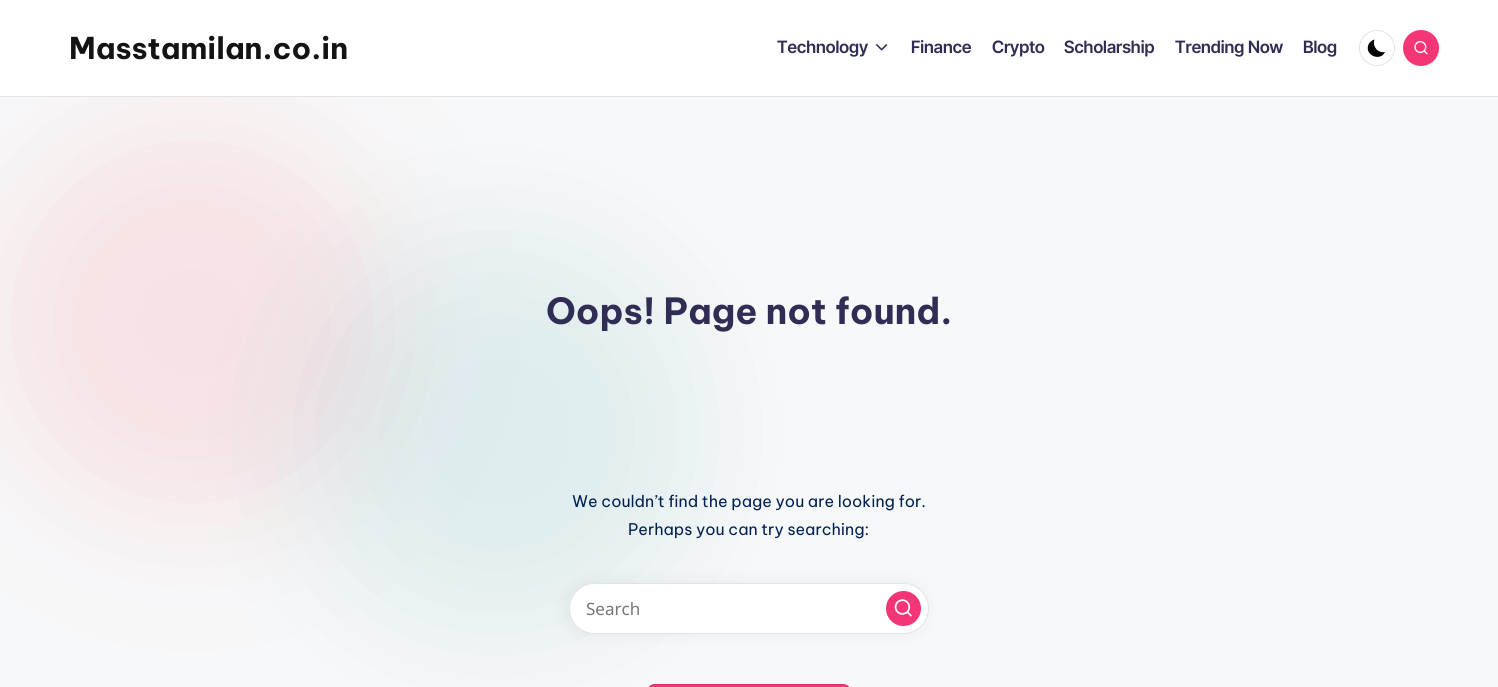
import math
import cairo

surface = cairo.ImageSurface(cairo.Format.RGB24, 1498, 687)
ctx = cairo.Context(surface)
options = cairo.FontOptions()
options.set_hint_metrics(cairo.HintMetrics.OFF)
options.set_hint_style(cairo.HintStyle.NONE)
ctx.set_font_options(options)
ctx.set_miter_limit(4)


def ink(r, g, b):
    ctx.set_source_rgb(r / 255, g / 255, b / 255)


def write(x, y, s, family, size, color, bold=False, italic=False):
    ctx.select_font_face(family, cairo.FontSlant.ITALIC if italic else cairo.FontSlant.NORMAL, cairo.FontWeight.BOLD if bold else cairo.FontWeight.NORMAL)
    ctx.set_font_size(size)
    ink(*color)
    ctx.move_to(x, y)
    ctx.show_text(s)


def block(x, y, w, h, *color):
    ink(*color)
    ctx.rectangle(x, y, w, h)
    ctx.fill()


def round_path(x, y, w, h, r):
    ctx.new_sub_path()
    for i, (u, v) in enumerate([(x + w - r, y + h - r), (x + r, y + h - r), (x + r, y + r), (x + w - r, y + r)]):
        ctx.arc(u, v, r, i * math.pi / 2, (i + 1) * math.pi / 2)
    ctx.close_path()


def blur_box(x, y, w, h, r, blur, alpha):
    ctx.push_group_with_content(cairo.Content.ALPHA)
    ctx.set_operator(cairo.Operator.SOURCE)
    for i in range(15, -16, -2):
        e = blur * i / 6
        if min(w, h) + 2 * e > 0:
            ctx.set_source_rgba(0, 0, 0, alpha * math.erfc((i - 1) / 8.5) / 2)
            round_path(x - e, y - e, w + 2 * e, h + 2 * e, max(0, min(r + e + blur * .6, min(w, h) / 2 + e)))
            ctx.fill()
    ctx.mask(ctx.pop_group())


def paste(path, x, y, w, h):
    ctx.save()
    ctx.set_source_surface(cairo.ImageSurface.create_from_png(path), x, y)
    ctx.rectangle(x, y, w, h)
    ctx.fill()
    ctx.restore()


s1 = dict(family="Be Vietnam Pro", size=30, color=(19, 19, 21), bold=True)
s2 = dict(family="Inter Tight SemiBold", size=17, color=(48, 45, 85))
s3 = dict(family="Be Vietnam Pro", size=36, color=(48, 45, 85), bold=True)
s4 = dict(family="Be Vietnam Pro", size=16, color=(0, 32, 80))
s5 = dict(family="Noto Sans", size=17, color=(117, 117, 117))

ink(247, 248, 249)
ctx.paint()
ink(247, 227, 229)
blur_box(0, 130, 384, 384, 192, 64, 1)
ink(4, 134, 139)
blur_box(304, 240, 384, 384, 192, 64, 0.1)
block(0, 0, 1498, 96, 255, 255, 255)
block(0, 96, 1498, 1, 227, 227, 227)
write(69, 59, "Masstamilan.co.in", **s1)
write(777, 53, "Technology", **s2)
paste("pic1.png", 876, 44, 12, 7)
write(911, 53, "Finance", **s2)
write(992, 53, "Crypto", **s2)
write(1064, 53, "Scholarship", **s2)
write(1175, 53, "Trending Now", **s2)
write(1303, 53, "Blog", **s2)
ctx.new_path()
ctx.arc(1377, 48, 17.5, 0, 2 * math.pi)
ink(227, 227, 227)
ctx.set_line_width(1)
ctx.stroke()
ink(0, 0, 0)
ctx.new_path()
ctx.move_to(1385, 52)
ctx.curve_to(1378, 53.5, 1372, 46.5, 1374.5, 39.5)
ctx.curve_to(1372.5, 40, 1370.5, 41.5, 1369, 43.5)
ctx.curve_to(1363, 54.5, 1380, 62.5, 1385, 52)
ctx.close_path()
ctx.fill()
ink(244, 54, 118)
ctx.arc(1421, 48, 18, 0, 2 * math.pi)
ctx.fill()
paste("pic2.png", 1414, 41, 14, 14)
write(546, 324, "Oops! Page not found.", **s3)
write(572, 507, "We couldn’t find the page you are looking for.", **s4)
write(628, 535, "Perhaps you can try searching:", **s4)
ink(0, 0, 0)
blur_box(582, 599, 328, 19, 9.5, 16, 0.15)
ink(255, 255, 255)
round_path(569, 583, 360, 51, 25.5)
ctx.fill()
round_path(569.5, 583.5, 359, 50, 25)
ctx.set_source_rgba(0.725, 0.725, 0.725, 0.4)
ctx.stroke()
write(586, 615, "Search", **s5)
ink(244, 54, 118)
ctx.new_path()
ctx.arc(903.5, 608.5, 17.5, 0, 2 * math.pi)
ctx.fill()
paste("pic3.png", 894, 599, 18, 18)
round_path(647, 684, 204, 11, 8)
ctx.fill()
round_path(647.5, 684.5, 203, 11, 7.5)
ctx.set_source_rgba(0, 0, 0, 0.12)
ctx.stroke()
surface.write_to_png("screenshot.png")
